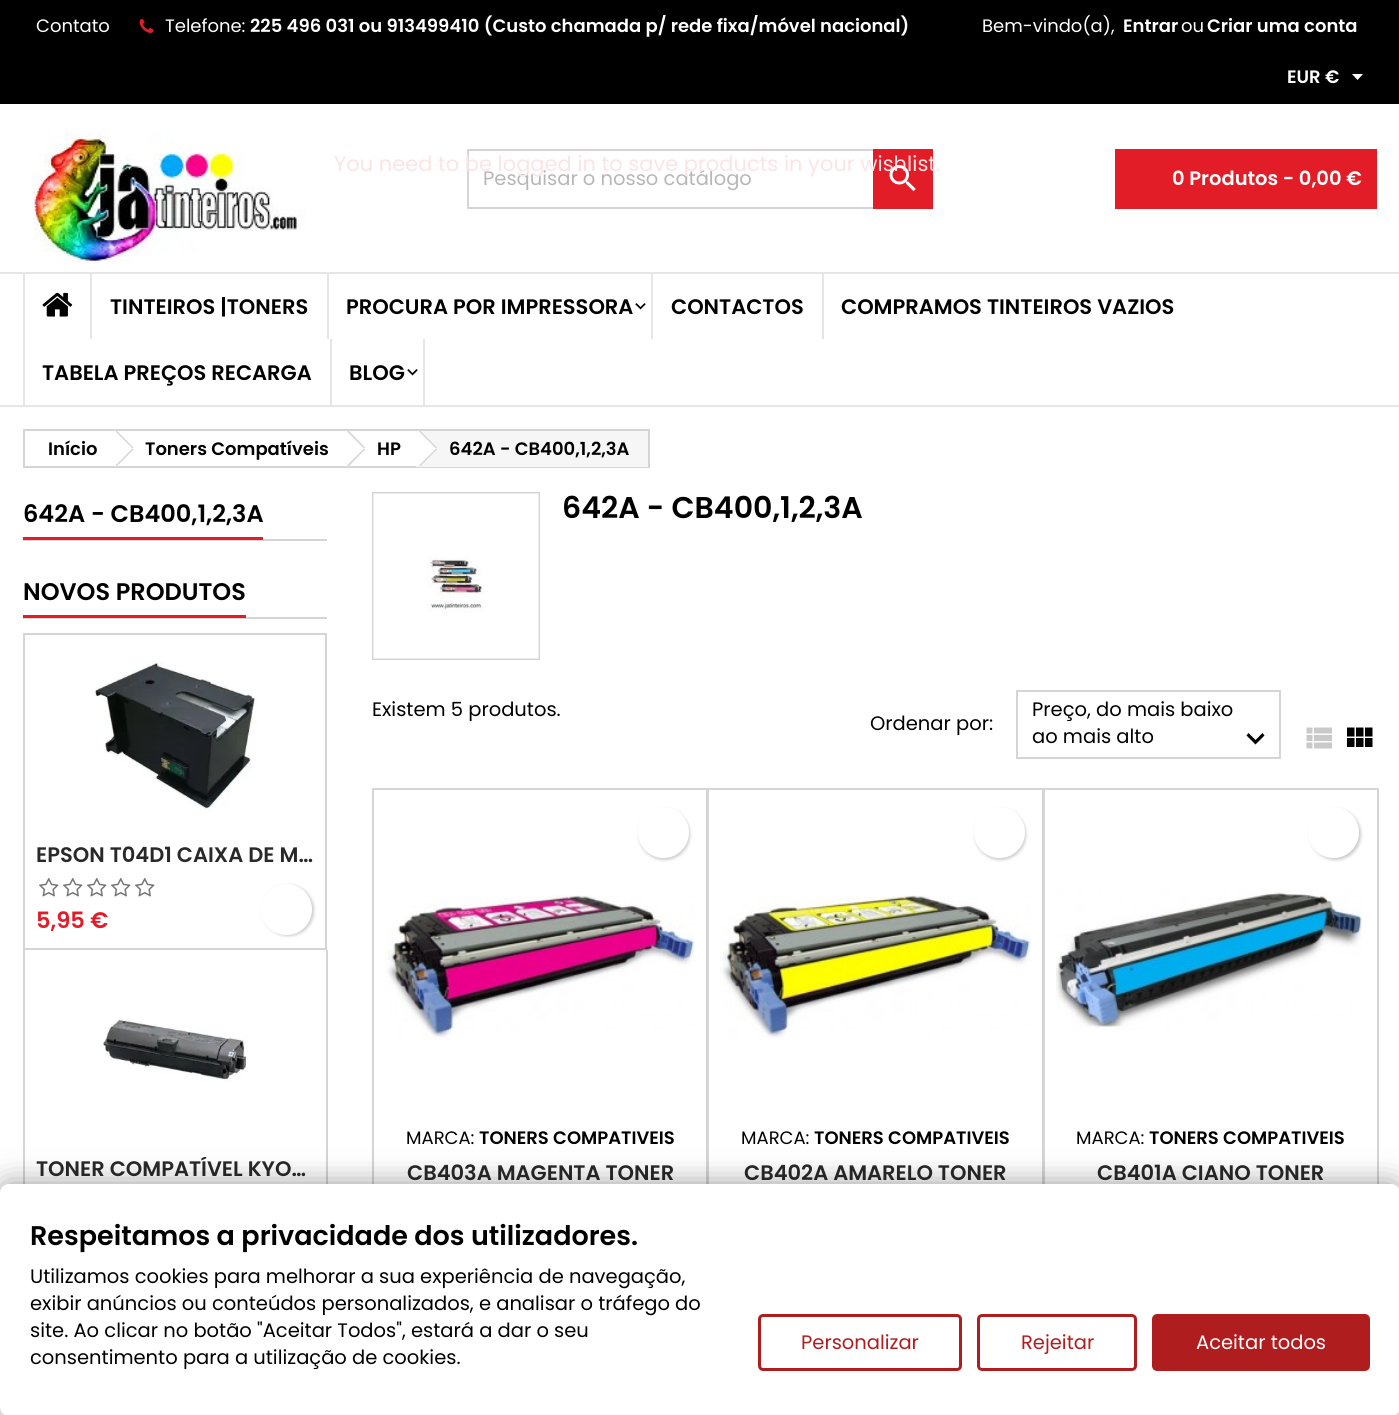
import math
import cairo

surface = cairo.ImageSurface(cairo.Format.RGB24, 1399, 1415)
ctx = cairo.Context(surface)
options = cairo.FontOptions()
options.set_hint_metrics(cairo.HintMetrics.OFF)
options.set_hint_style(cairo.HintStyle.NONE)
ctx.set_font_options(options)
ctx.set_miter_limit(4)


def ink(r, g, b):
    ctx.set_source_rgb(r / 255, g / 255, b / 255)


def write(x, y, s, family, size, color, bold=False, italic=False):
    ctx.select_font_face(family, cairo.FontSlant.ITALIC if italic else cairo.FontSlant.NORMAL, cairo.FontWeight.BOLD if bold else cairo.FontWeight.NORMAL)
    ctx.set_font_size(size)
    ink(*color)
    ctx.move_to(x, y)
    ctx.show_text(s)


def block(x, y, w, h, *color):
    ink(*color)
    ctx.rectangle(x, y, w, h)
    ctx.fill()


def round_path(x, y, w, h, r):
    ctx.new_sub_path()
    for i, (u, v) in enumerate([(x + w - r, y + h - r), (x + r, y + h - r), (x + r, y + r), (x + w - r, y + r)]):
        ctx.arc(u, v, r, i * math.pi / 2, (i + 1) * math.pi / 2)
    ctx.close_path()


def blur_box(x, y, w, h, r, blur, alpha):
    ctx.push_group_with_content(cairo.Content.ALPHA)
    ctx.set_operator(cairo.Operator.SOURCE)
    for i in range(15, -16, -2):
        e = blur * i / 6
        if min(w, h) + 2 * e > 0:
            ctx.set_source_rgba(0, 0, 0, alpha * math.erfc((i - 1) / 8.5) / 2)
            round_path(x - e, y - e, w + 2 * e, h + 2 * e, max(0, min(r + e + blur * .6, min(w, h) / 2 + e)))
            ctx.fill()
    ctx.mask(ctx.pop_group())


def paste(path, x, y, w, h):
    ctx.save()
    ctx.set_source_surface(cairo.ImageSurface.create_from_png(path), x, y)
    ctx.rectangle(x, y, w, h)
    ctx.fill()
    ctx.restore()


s1 = dict(family="Poppins", size=18, color=(255, 255, 255))
s2 = dict(family="Poppins SemiBold", size=18, color=(255, 255, 255))
s3 = dict(family="Poppins", size=19.5, color=(183, 183, 183))
s4 = dict(family="Poppins SemiBold", size=19.5, color=(255, 255, 255))
s5 = dict(family="Poppins SemiBold", size=21, color=(0, 0, 0))
s6 = dict(family="Poppins", size=21, color=(251, 228, 229))
s7 = dict(family="Poppins SemiBold", size=18, color=(0, 0, 0))
s8 = dict(family="Poppins SemiBold", size=24, color=(0, 0, 0))
s9 = dict(family="Poppins SemiBold", size=21, color=(41, 41, 41))
s10 = dict(family="Poppins SemiBold", size=22.5, color=(227, 29, 39))
s11 = dict(family="Poppins SemiBold", size=30, color=(0, 0, 0))
s12 = dict(family="Poppins", size=19.5, color=(0, 0, 0))
s13 = dict(family="Poppins", size=18, color=(0, 0, 0))
s14 = dict(family="Poppins SemiBold", size=27, color=(0, 0, 0))
s15 = dict(family="Poppins", size=19.5, color=(175, 29, 31))
s16 = dict(family="Poppins", size=19.5, color=(255, 255, 255))

ink(255, 255, 255)
ctx.paint()
block(0, 0, 1399, 104, 0, 0, 0)
write(36, 32, "Contato", **s1)
paste("pic1.png", 139, 18, 15, 15)
write(165, 32, "Telefone:", **s1)
write(250, 32, "225 496 031 ou 913499410 (Custo chamada p/ rede fixa/móvel nacional)", **s2)
write(982, 32, "Bem-vindo(a),", **s1)
write(1123, 32, "Entrar", **s2)
write(1181, 32, "ou", **s1)
write(1207, 32, "Criar uma conta", **s2)
write(1287, 83, "EUR €", **s2)
ctx.new_path()
ctx.move_to(1352, 74)
ctx.line_to(1363, 74)
ctx.line_to(1357.5, 80)
ctx.close_path()
ctx.fill()
paste("pic2.png", 33, 132, 273, 132)
ctx.rectangle(468, 150, 464, 58)
ink(214, 212, 212)
ctx.stroke()
write(483, 185, "Pesquisar o nosso catálogo", **s3)
block(873, 149, 60, 60, 227, 29, 39)
paste("pic3.png", 889, 165, 27, 27)
block(1115, 149, 262, 60, 227, 29, 39)
write(1172, 185, "0 Produtos - 0,00 €", **s4)
block(0, 272, 1399, 2, 230, 230, 230)
block(0, 405, 1399, 2, 230, 230, 230)
block(23, 273, 2, 132, 230, 230, 230)
paste("pic4.png", 42, 292, 31, 25)
block(90, 273, 2, 66, 230, 230, 230)
write(110, 314, "TINTEIROS |TONERS", **s5)
block(327, 273, 2, 66, 230, 230, 230)
write(346, 314, "PROCURA POR IMPRESSORA", **s5)
paste("pic5.png", 635, 303, 11, 7)
block(651, 273, 2, 66, 230, 230, 230)
write(671, 314, "CONTACTOS", **s5)
block(822, 273, 2, 66, 230, 230, 230)
write(841, 314, "COMPRAMOS TINTEIROS VAZIOS", **s5)
write(42, 380, "TABELA PREÇOS RECARGA", **s5)
block(423, 339, 2, 66, 230, 230, 230)
block(330, 339, 2, 66, 230, 230, 230)
write(349, 380, "BLOG", **s5)
paste("pic5.png", 407, 369, 11, 7)
write(334, 171, "You need to be logged in to save products in your wishlist.", **s6)
ctx.rectangle(24, 430, 625, 37)
ink(214, 212, 212)
ctx.stroke()
write(48, 455, "Início", **s7)
ink(255, 255, 255)
ctx.new_path()
ctx.move_to(117.5, 431.5)
ctx.line_to(132.5, 446.5)
ctx.curve_to(133.5, 447.5, 133.5, 449.5, 132.5, 450.5)
ctx.line_to(117.5, 465.5)
ctx.curve_to(116.5, 466.5, 114.5, 466.5, 113.5, 465.5)
ctx.line_to(98.5, 450.5)
ctx.curve_to(97.5, 449.5, 97.5, 447.5, 98.5, 446.5)
ctx.line_to(113.5, 431.5)
ctx.curve_to(114.5, 430.5, 116.5, 430.5, 117.5, 431.5)
ctx.close_path()
ctx.fill()
ink(214, 212, 212)
ctx.new_path()
ctx.move_to(116.5, 430.5)
ctx.line_to(133.5, 447.5)
ctx.line_to(132.5, 448.5)
ctx.line_to(115.5, 431.5)
ctx.close_path()
ctx.fill()
ctx.new_path()
ctx.move_to(132.5, 448.5)
ctx.line_to(133.5, 449.5)
ctx.line_to(116.5, 466.5)
ctx.line_to(115.5, 465.5)
ctx.close_path()
ctx.fill()
write(145, 455, "Toners Compatíveis", **s7)
ink(255, 255, 255)
ctx.new_path()
ctx.move_to(349.5, 431.5)
ctx.line_to(364, 446.5)
ctx.curve_to(365.5, 447.5, 365.5, 449.5, 364, 450.5)
ctx.line_to(349.5, 465.5)
ctx.curve_to(348, 466.5, 346.5, 466.5, 345, 465.5)
ctx.line_to(330, 450.5)
ctx.curve_to(329, 449.5, 329, 447.5, 330, 446.5)
ctx.line_to(345, 431.5)
ctx.curve_to(346.5, 430.5, 348, 430.5, 349.5, 431.5)
ctx.close_path()
ctx.fill()
ink(214, 212, 212)
ctx.new_path()
ctx.move_to(348.5, 430.5)
ctx.line_to(365, 447.5)
ctx.line_to(364, 448.5)
ctx.line_to(347, 431.5)
ctx.close_path()
ctx.fill()
ctx.new_path()
ctx.move_to(364, 448.5)
ctx.line_to(365, 449.5)
ctx.line_to(348.5, 466.5)
ctx.line_to(347, 465.5)
ctx.close_path()
ctx.fill()
write(377, 455, "HP", **s7)
block(416, 431, 232, 36, 246, 246, 246)
ink(255, 255, 255)
ctx.new_path()
ctx.move_to(421, 431.5)
ctx.line_to(436, 446.5)
ctx.curve_to(437, 447.5, 437, 449.5, 436, 450.5)
ctx.line_to(421, 465.5)
ctx.curve_to(420, 466.5, 418, 466.5, 417, 465.5)
ctx.line_to(402, 450.5)
ctx.curve_to(401, 449.5, 401, 447.5, 402, 446.5)
ctx.line_to(417, 431.5)
ctx.curve_to(418, 430.5, 420, 430.5, 421, 431.5)
ctx.close_path()
ctx.fill()
ink(214, 212, 212)
ctx.new_path()
ctx.move_to(420, 430.5)
ctx.line_to(437, 447.5)
ctx.line_to(436, 448.5)
ctx.line_to(419, 431.5)
ctx.close_path()
ctx.fill()
ctx.new_path()
ctx.move_to(436, 448.5)
ctx.line_to(437, 449.5)
ctx.line_to(420, 466.5)
ctx.line_to(419, 465.5)
ctx.close_path()
ctx.fill()
write(449, 455, "642A - CB400,1,2,3A", **s7)
block(23, 539, 304, 2, 214, 212, 212)
block(23, 537, 240, 3, 227, 29, 39)
write(23, 522, "642A - CB400,1,2,3A", **s8)
block(23, 617, 304, 2, 214, 212, 212)
block(23, 615, 223, 3, 227, 29, 39)
write(23, 600, "NOVOS PRODUTOS", **s8)
ctx.rectangle(24, 634, 302, 315)
ink(214, 212, 212)
ctx.stroke()
paste("pic6.png", 94, 662, 163, 149)
write(36, 862, "EPSON T04D1 CAIXA DE M…", **s9)
paste("pic7.png", 39, 877, 20, 20)
paste("pic7.png", 63, 877, 20, 20)
paste("pic7.png", 87, 877, 20, 20)
paste("pic7.png", 111, 877, 20, 20)
paste("pic7.png", 135, 877, 20, 20)
write(36, 928, "5,95 €", **s10)
ink(0, 0, 0)
blur_box(263, 885, 51, 51, 25.5, 1.5, 0.2)
ink(255, 255, 255)
ctx.arc(286.5, 909.5, 25.5, 0, 2 * math.pi)
ctx.fill()
block(326, 950, 2, 234, 214, 212, 212)
block(23, 950, 2, 234, 214, 212, 212)
paste("pic8.png", 102, 1019, 146, 63)
ctx.save()
ctx.rectangle(36, 1157, 278, 24)
ctx.clip()
write(36, 1176, "TONER COMPATÍVEL KYO…", **s9)
ctx.restore()
ctx.rectangle(373, 493, 166, 166)
ctx.stroke()
paste("pic9.png", 373, 493, 166, 166)
write(562, 518, "642A - CB400,1,2,3A", **s11)
write(372, 716, "Existem 5 produtos.", **s12)
write(870, 730, "Ordenar por:", **s12)
ctx.rectangle(1017, 691, 263, 67)
ink(214, 212, 212)
ctx.stroke()
write(1032, 716, "Preço, do mais baixo", **s12)
write(1032, 743, "ao mais alto", **s12)
ctx.new_path()
ctx.move_to(1248.5, 733)
ctx.line_to(1255.5, 740)
ctx.line_to(1262.5, 733)
ctx.line_to(1264.5, 735.5)
ctx.line_to(1255.5, 744.5)
ctx.line_to(1246.5, 735.5)
ctx.close_path()
ctx.fill()
paste("pic10.png", 1306, 727, 26, 22)
paste("pic11.png", 1346, 727, 27, 20)
ctx.rectangle(373, 789, 334, 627)
ink(214, 212, 212)
ctx.stroke()
ink(0, 0, 0)
blur_box(639, 809, 51, 51, 25.5, 1.5, 0.2)
ink(255, 255, 255)
ctx.arc(663.5, 832.5, 25.5, 0, 2 * math.pi)
ctx.fill()
paste("pic12.png", 385, 895, 310, 145)
write(406, 1144, "MARCA:", **s13)
write(479, 1144, "TONERS COMPATIVEIS", **s7)
write(407, 1180, "CB403A MAGENTA TONER", **s9)
ctx.rectangle(708, 789, 335, 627)
ink(214, 212, 212)
ctx.stroke()
ink(0, 0, 0)
blur_box(975, 809, 51, 51, 25.5, 1.5, 0.2)
ink(255, 255, 255)
ctx.arc(999.5, 832.5, 25.5, 0, 2 * math.pi)
ctx.fill()
paste("pic13.png", 720, 895, 311, 145)
write(741, 1144, "MARCA:", **s13)
write(814, 1144, "TONERS COMPATIVEIS", **s7)
write(744, 1180, "CB402A AMARELO TONER", **s9)
ctx.rectangle(1044, 789, 334, 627)
ink(214, 212, 212)
ctx.stroke()
ink(0, 0, 0)
blur_box(1310, 809, 51, 51, 25.5, 1.5, 0.2)
ink(255, 255, 255)
ctx.arc(1333.5, 832.5, 25.5, 0, 2 * math.pi)
ctx.fill()
paste("pic14.png", 1056, 890, 306, 140)
write(1076, 1144, "MARCA:", **s13)
write(1149, 1144, "TONERS COMPATIVEIS", **s7)
write(1097, 1180, "CB401A CIANO TONER", **s9)
ink(0, 0, 0)
blur_box(0, 1184, 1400, 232, 9, 15, 0.4)
ink(255, 255, 255)
round_path(0, 1184, 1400, 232, 9)
ctx.fill()
write(30, 1245, "Respeitamos a privacidade dos utilizadores.", **s14)
write(30, 1283, "Utilizamos cookies para melhorar a sua experiência de navegação,", **s12)
write(30, 1310, "exibir anúncios ou conteúdos personalizados, e analisar o tráfego do", **s12)
write(30, 1337, "site. Ao clicar no botão \"Aceitar Todos\", estará a dar o seu", **s12)
write(30, 1364, "consentimento para a utilização de cookies.", **s12)
round_path(759.5, 1315.5, 201, 54, 3.5)
ink(175, 29, 31)
ctx.set_line_width(3)
ctx.stroke()
write(801, 1349, "Personalizar", **s15)
round_path(978.5, 1315.5, 157, 54, 3.5)
ctx.stroke()
write(1021, 1349, "Rejeitar", **s15)
round_path(1153.5, 1315.5, 215, 54, 3.5)
ctx.fill_preserve()
ctx.stroke()
write(1196, 1349, "Aceitar todos", **s16)
surface.write_to_png("screenshot.png")
